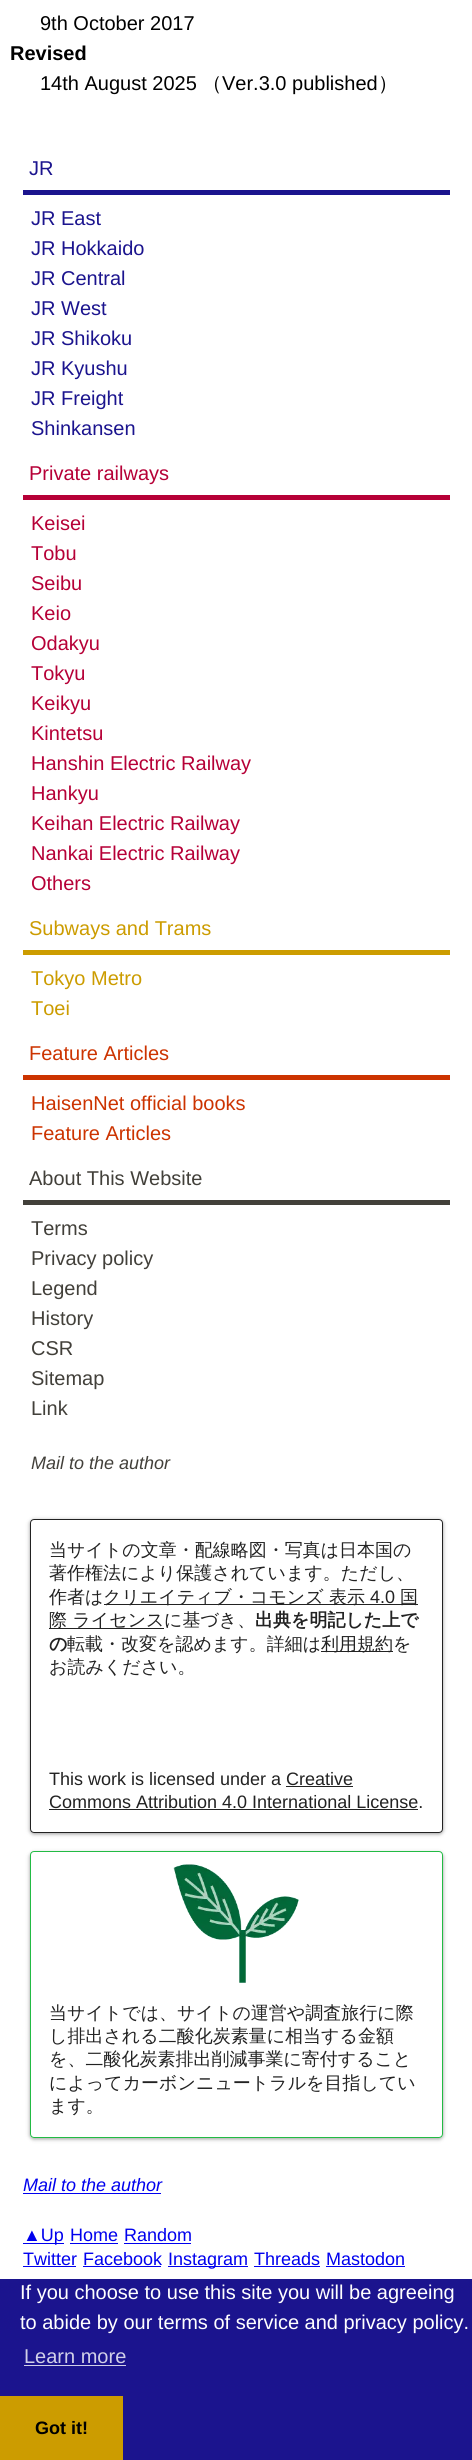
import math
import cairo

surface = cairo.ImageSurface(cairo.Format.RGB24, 472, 2460)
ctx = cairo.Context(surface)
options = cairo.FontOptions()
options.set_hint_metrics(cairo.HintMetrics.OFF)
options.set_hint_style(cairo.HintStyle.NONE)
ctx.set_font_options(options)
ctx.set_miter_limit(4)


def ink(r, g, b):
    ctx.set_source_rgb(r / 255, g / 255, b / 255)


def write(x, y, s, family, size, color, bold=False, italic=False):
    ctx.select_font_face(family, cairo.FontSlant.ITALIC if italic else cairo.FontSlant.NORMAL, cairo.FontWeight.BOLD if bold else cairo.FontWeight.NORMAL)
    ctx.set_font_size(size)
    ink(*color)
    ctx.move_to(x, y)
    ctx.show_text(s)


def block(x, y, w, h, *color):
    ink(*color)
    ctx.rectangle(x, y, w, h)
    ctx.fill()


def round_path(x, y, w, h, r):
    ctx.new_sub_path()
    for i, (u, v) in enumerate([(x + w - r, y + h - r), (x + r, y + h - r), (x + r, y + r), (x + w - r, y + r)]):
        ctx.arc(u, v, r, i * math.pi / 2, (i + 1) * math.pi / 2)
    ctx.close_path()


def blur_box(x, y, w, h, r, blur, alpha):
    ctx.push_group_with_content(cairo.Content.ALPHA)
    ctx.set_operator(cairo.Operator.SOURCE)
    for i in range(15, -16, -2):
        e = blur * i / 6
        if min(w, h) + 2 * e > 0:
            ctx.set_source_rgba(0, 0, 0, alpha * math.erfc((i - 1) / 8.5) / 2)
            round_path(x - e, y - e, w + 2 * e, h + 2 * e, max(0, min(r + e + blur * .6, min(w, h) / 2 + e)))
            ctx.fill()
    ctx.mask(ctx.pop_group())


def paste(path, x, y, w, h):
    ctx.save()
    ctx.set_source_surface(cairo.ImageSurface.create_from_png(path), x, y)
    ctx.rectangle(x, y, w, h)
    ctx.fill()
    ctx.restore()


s1 = dict(family="Liberation Sans", size=20, color=(0, 0, 0))
s2 = dict(family="Liberation Sans", size=20, color=(0, 0, 0), bold=True)
s3 = dict(family="WenQuanYi Zen Hei Medium", size=20, color=(0, 0, 0))
s4 = dict(family="Liberation Sans", size=20, color=(27, 20, 142))
s5 = dict(family="Liberation Sans", size=20, color=(182, 0, 55))
s6 = dict(family="Liberation Sans", size=20, color=(204, 156, 0))
s7 = dict(family="Liberation Sans", size=20, color=(204, 51, 0))
s8 = dict(family="Liberation Sans", size=20, color=(66, 64, 58))
s9 = dict(family="Liberation Sans", size=18, color=(66, 64, 58), italic=True)
s10 = dict(family="WenQuanYi Zen Hei Medium", size=18, color=(34, 34, 34))
s11 = dict(family="Liberation Sans", size=18, color=(34, 34, 34))
s12 = dict(family="WenQuanYi Zen Hei", size=18, color=(34, 34, 34), bold=True)
s13 = dict(family="Liberation Sans", size=18, color=(0, 0, 238), italic=True)
s14 = dict(family="Liberation Sans", size=18, color=(0, 0, 238))
s15 = dict(family="Liberation Sans", size=20, color=(255, 255, 255))
s16 = dict(family="Liberation Sans", size=20, color=(209, 208, 232))
s17 = dict(family="Liberation Sans", size=18, color=(0, 0, 0), bold=True)

ink(255, 255, 255)
ctx.paint()
write(40, 30, "9th October 2017", **s1)
write(10, 60, "Revised", **s2)
write(40, 90, "14th August 2025", **s1)
write(202, 90, "（", **s3)
write(222, 90, "Ver.3.0 published", **s1)
write(378, 90, "）", **s3)
block(23, 190, 427, 5, 27, 20, 142)
write(29, 175, "JR", **s4)
write(31, 225, "JR East", **s4)
write(31, 255, "JR Hokkaido", **s4)
write(31, 285, "JR Central", **s4)
write(31, 315, "JR West", **s4)
write(31, 345, "JR Shikoku", **s4)
write(31, 375, "JR Kyushu", **s4)
write(31, 405, "JR Freight", **s4)
write(31, 435, "Shinkansen", **s4)
block(23, 495, 427, 5, 182, 0, 55)
write(29, 480, "Private railways", **s5)
write(31, 530, "Keisei", **s5)
write(31, 560, "Tobu", **s5)
write(31, 590, "Seibu", **s5)
write(31, 620, "Keio", **s5)
write(31, 650, "Odakyu", **s5)
write(31, 680, "Tokyu", **s5)
write(31, 710, "Keikyu", **s5)
write(31, 740, "Kintetsu", **s5)
write(31, 770, "Hanshin Electric Railway", **s5)
write(31, 800, "Hankyu", **s5)
write(31, 830, "Keihan Electric Railway", **s5)
write(31, 860, "Nankai Electric Railway", **s5)
write(31, 890, "Others", **s5)
block(23, 950, 427, 5, 204, 156, 0)
write(29, 935, "Subways and Trams", **s6)
write(31, 985, "Tokyo Metro", **s6)
write(31, 1015, "Toei", **s6)
block(23, 1075, 427, 5, 204, 51, 0)
write(29, 1060, "Feature Articles", **s7)
write(31, 1110, "HaisenNet official books", **s7)
write(31, 1140, "Feature Articles", **s7)
block(23, 1200, 427, 5, 66, 64, 58)
write(29, 1185, "About This Website", **s8)
write(31, 1235, "Terms", **s8)
write(31, 1265, "Privacy policy", **s8)
write(31, 1295, "Legend", **s8)
write(31, 1325, "History", **s8)
write(31, 1355, "CSR", **s8)
write(31, 1385, "Sitemap", **s8)
write(31, 1415, "Link", **s8)
write(31, 1469, "Mail to the author", **s9)
ctx.save()
ctx.set_fill_rule(cairo.FillRule.EVEN_ODD)
ctx.new_path()
ctx.move_to(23, 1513)
ctx.line_to(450, 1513)
ctx.line_to(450, 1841)
ctx.line_to(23, 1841)
ctx.close_path()
ctx.move_to(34, 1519)
ctx.line_to(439, 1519)
ctx.curve_to(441, 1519, 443, 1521, 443, 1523)
ctx.line_to(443, 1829)
ctx.curve_to(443, 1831, 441, 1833, 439, 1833)
ctx.line_to(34, 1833)
ctx.curve_to(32, 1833, 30, 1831, 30, 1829)
ctx.line_to(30, 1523)
ctx.curve_to(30, 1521, 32, 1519, 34, 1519)
ctx.close_path()
ctx.clip()
ink(0, 0, 0)
blur_box(30, 1520, 413, 314, 4, 2, 0.4)
ctx.restore()
round_path(30.5, 1519.5, 412, 313, 3.5)
ink(34, 34, 34)
ctx.set_line_width(1)
ctx.stroke()
write(49, 1556, "当サイトの文章・配線略図・写真は日本国の", **s10)
write(49, 1579, "著作権法により保護されています。ただし、", **s10)
write(49, 1603, "作者は", **s10)
block(104, 1604, 314, 1, 34, 34, 34)
write(103, 1603, "クリエイティブ・コモンズ 表示", **s10)
write(370, 1603, "4.0", **s11)
write(400, 1603, "国", **s10)
block(49, 1628, 115, 1, 34, 34, 34)
write(49, 1626, "際 ライセンス", **s10)
write(164, 1626, "に基づき、", **s10)
write(255, 1626, "出典を明記した上で", **s12)
write(49, 1650, "の", **s12)
write(67, 1650, "転載・改変を認めます。詳細は", **s10)
block(321, 1651, 72, 1, 34, 34, 34)
write(321, 1650, "利用規約を", **s10)
write(49, 1673, "お読みください。", **s10)
write(49, 1785, "This work is licensed under a Creative", **s11)
write(49, 1808, "Commons Attribution 4.0 International License.", **s11)
block(286, 1786, 67, 1, 34, 34, 34)
block(49, 1809, 369, 1, 34, 34, 34)
ctx.save()
ctx.set_fill_rule(cairo.FillRule.EVEN_ODD)
ctx.new_path()
ctx.move_to(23, 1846)
ctx.line_to(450, 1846)
ctx.line_to(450, 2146)
ctx.line_to(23, 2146)
ctx.close_path()
ctx.move_to(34, 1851)
ctx.line_to(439, 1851)
ctx.curve_to(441, 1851, 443, 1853, 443, 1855)
ctx.line_to(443, 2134)
ctx.curve_to(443, 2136, 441, 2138, 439, 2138)
ctx.line_to(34, 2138)
ctx.curve_to(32, 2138, 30, 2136, 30, 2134)
ctx.line_to(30, 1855)
ctx.curve_to(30, 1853, 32, 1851, 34, 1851)
ctx.close_path()
ctx.clip()
ink(0, 0, 0)
blur_box(30, 1853, 413, 286, 4, 2, 0.4)
ctx.restore()
round_path(30.5, 1851.5, 412, 286, 3.5)
ink(34, 187, 68)
ctx.stroke()
paste("pic1.png", 173, 1864, 126, 119)
write(49, 2019, "当サイトでは、サイトの運営や調査旅行に際", **s10)
write(49, 2042, "し排出される二酸化炭素量に相当する金額", **s10)
write(49, 2065, "を、二酸化炭素排出削減事業に寄付すること", **s10)
write(49, 2089, "によってカーボンニュートラルを目指してい", **s10)
write(49, 2112, "ます。", **s10)
write(23, 2191, "Mail to the author", **s13)
block(23, 2193, 138, 1, 0, 0, 238)
block(23, 2243, 41, 1, 0, 0, 238)
write(23, 2241, "▲Up", **s14)
write(70, 2241, "Home", **s14)
block(70, 2243, 48, 1, 0, 0, 238)
write(124, 2241, "Random", **s14)
block(124, 2243, 67, 1, 0, 0, 238)
write(23, 2265, "Twitter", **s14)
block(23, 2266, 53, 1, 0, 0, 238)
write(83, 2265, "Facebook", **s14)
block(83, 2266, 78, 1, 0, 0, 238)
block(168, 2266, 80, 1, 0, 0, 238)
write(168, 2265, "Instagram", **s14)
write(254, 2265, "Threads", **s14)
block(254, 2266, 66, 1, 0, 0, 238)
write(326, 2265, "Mastodon", **s14)
block(326, 2266, 79, 1, 0, 0, 238)
block(0, 2279, 472, 181, 27, 20, 142)
write(20, 2299, "If you choose to use this site you will be agreeing", **s15)
write(20, 2329, "to abide by our terms of service and privacy policy.", **s15)
write(24, 2363, "Learn more", **s16)
block(24, 2365, 102, 1, 209, 208, 232)
block(0, 2396, 123, 64, 204, 156, 0)
write(35, 2434, "Got it!", **s17)
surface.write_to_png("screenshot.png")
